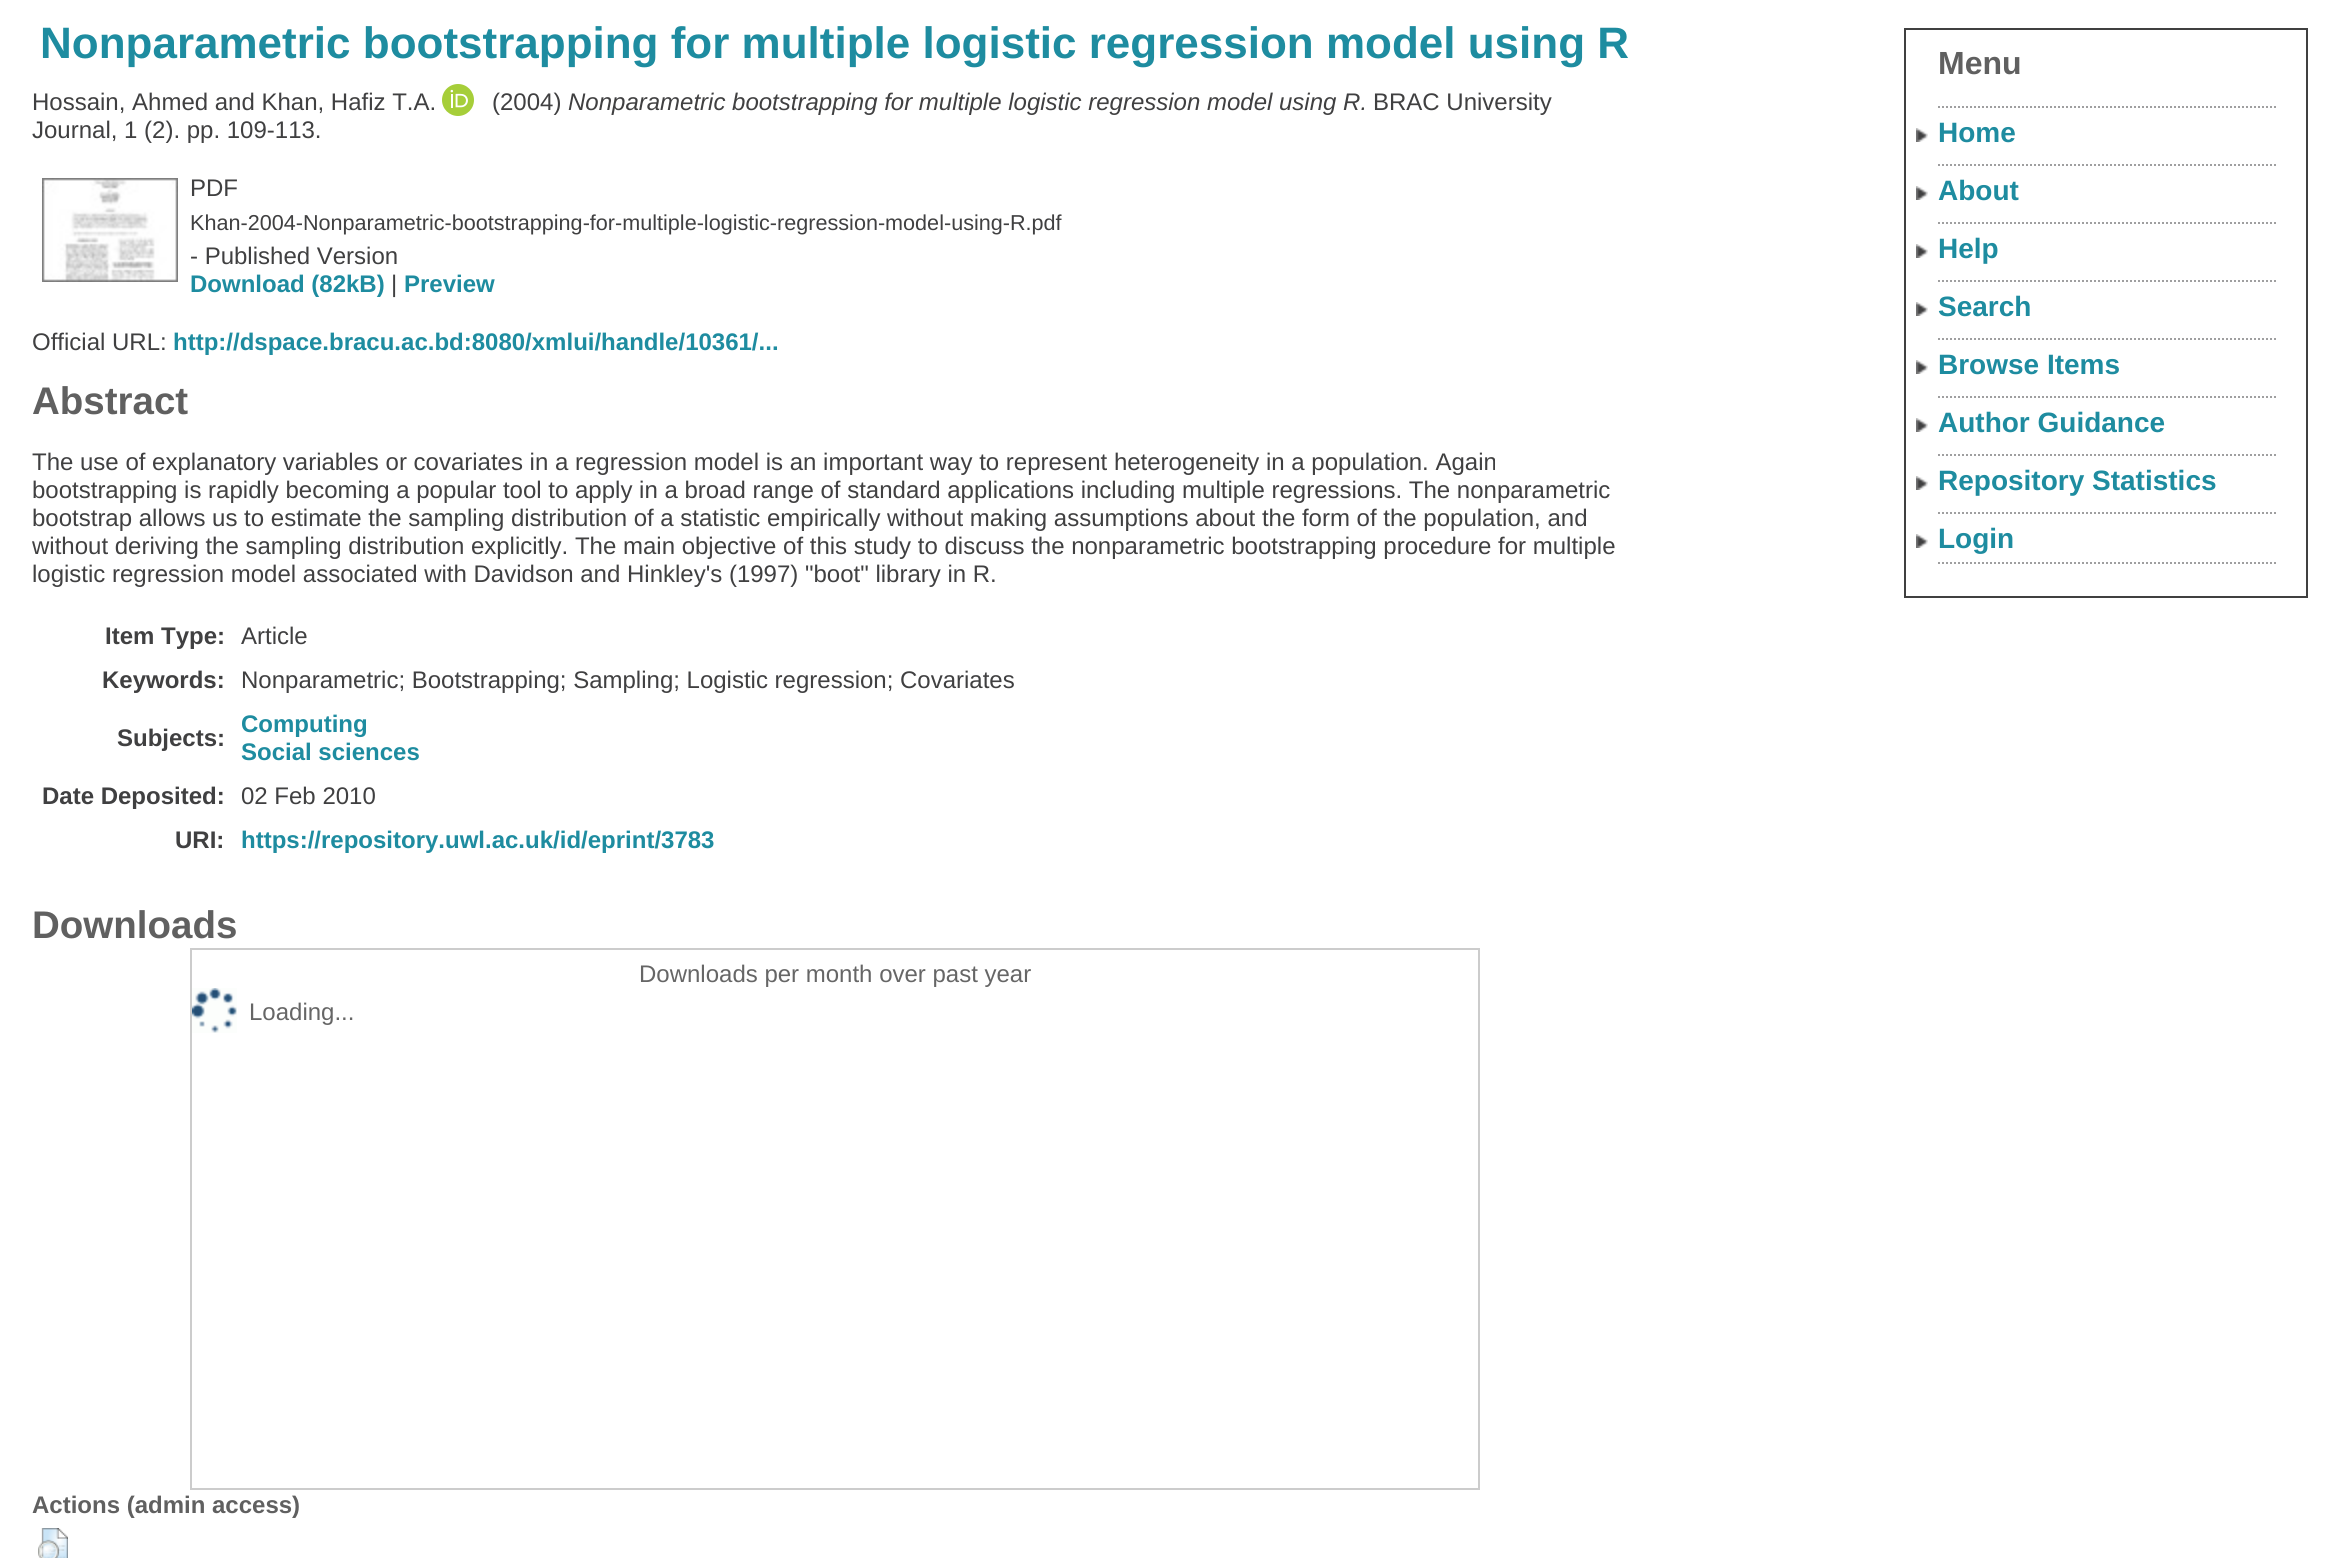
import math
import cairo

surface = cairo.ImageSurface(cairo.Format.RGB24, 2326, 1558)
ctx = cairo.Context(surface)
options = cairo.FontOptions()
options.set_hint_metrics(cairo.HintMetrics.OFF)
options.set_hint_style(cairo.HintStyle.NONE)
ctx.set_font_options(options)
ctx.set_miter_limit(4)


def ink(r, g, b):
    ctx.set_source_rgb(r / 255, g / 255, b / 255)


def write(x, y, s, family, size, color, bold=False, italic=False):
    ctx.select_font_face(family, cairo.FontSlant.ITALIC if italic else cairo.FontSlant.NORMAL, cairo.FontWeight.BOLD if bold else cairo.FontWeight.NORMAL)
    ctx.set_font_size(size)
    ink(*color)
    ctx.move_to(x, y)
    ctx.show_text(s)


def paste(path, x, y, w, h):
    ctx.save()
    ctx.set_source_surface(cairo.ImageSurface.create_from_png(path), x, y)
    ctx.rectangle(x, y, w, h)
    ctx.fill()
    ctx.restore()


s1 = dict(family="Liberation Sans", size=44, color=(30, 140, 160), bold=True)
s2 = dict(family="Liberation Sans", size=24, color=(64, 64, 65))
s3 = dict(family="Liberation Sans", size=24, color=(64, 64, 65), italic=True)
s4 = dict(family="Liberation Sans", size=21.6, color=(64, 64, 65))
s5 = dict(family="Liberation Sans", size=24, color=(30, 140, 160), bold=True)
s6 = dict(family="Liberation Sans", size=38.5, color=(96, 96, 96), bold=True)
s7 = dict(family="Liberation Sans", size=24, color=(64, 64, 65), bold=True)
s8 = dict(family="Liberation Sans", size=24, color=(102, 102, 102))
s9 = dict(family="Liberation Sans", size=24, color=(96, 96, 96), bold=True)
s10 = dict(family="Liberation Sans", size=32, color=(96, 96, 96), bold=True)
s11 = dict(family="Liberation Sans", size=28, color=(30, 140, 160), bold=True)

ink(255, 255, 255)
ctx.paint()
write(40, 58, "Nonparametric bootstrapping for multiple logistic regression model using R", **s1)
write(32, 110, "Hossain, Ahmed and Khan, Hafiz T.A.", **s2)
paste("pic1.png", 442, 84, 32, 32)
write(492, 110, "(2004)", **s2)
write(568, 110, "Nonparametric bootstrapping for multiple logistic regression model using R.", **s3)
write(1373, 110, "BRAC University", **s2)
write(32, 138, "Journal, 1 (2). pp. 109-113.", **s2)
paste("pic2.png", 42, 178, 136, 104)
write(190, 196, "PDF", **s2)
write(190, 230, "Khan-2004-Nonparametric-bootstrapping-for-multiple-logistic-regression-model-using-R.pdf", **s4)
write(190, 264, "- Published Version", **s2)
write(190, 292, "Download (82kB)", **s5)
write(391, 292, "|", **s2)
write(404, 292, "Preview", **s5)
write(32, 350, "Official URL:", **s2)
write(173, 350, "http://dspace.bracu.ac.bd:8080/xmlui/handle/10361/...", **s5)
write(32, 414, "Abstract", **s6)
write(32, 470, "The use of explanatory variables or covariates in a regression model is an important way to represent heterogeneity in a population. Again", **s2)
write(32, 498, "bootstrapping is rapidly becoming a popular tool to apply in a broad range of standard applications including multiple regressions. The nonparametric", **s2)
write(32, 526, "bootstrap allows us to estimate the sampling distribution of a statistic empirically without making assumptions about the form of the population, and", **s2)
write(32, 554, "without deriving the sampling distribution explicitly. The main objective of this study to discuss the nonparametric bootstrapping procedure for multiple", **s2)
write(32, 582, "logistic regression model associated with Davidson and Hinkley's (1997) \"boot\" library in R.", **s2)
write(105, 644, "Item Type:", **s7)
write(241, 644, "Article", **s2)
write(102, 688, "Keywords:", **s7)
write(241, 688, "Nonparametric; Bootstrapping; Sampling; Logistic regression; Covariates", **s2)
write(117, 746, "Subjects:", **s7)
write(241, 732, "Computing", **s5)
write(241, 760, "Social sciences", **s5)
write(42, 804, "Date Deposited:", **s7)
write(241, 804, "02 Feb 2010", **s2)
write(175, 848, "URI:", **s7)
write(241, 848, "https://repository.uwl.ac.uk/id/eprint/3783", **s5)
write(32, 938, "Downloads", **s6)
ctx.rectangle(191, 949, 1288, 540)
ink(204, 204, 204)
ctx.stroke()
write(639, 982, "Downloads per month over past year", **s8)
paste("pic3.png", 192, 988, 45, 45)
write(249, 1020, "Loading...", **s8)
write(32, 1513, "Actions (admin access)", **s9)
paste("pic4.png", 38, 1528, 30, 30)
ctx.rectangle(1905, 29, 402, 568)
ink(64, 64, 64)
ctx.stroke()
write(1938, 74, "Menu", **s10)
paste("pic5.png", 1916, 128, 12, 14)
ctx.new_path()
ctx.move_to(1938, 107)
ctx.line_to(2278, 107)
ink(159, 159, 160)
ctx.set_dash([2, 2])
ctx.stroke()
write(1938, 142, "Home", **s11)
paste("pic5.png", 1916, 186, 12, 14)
ctx.new_path()
ctx.move_to(1938, 165)
ctx.line_to(2278, 165)
ink(159, 159, 160)
ctx.stroke()
write(1938, 200, "About", **s11)
paste("pic5.png", 1916, 244, 12, 14)
ctx.new_path()
ctx.move_to(1938, 223)
ctx.line_to(2278, 223)
ink(159, 159, 160)
ctx.stroke()
write(1938, 258, "Help", **s11)
paste("pic5.png", 1916, 302, 12, 14)
ctx.new_path()
ctx.move_to(1938, 281)
ctx.line_to(2278, 281)
ink(159, 159, 160)
ctx.stroke()
write(1938, 316, "Search", **s11)
paste("pic5.png", 1916, 360, 12, 14)
ctx.new_path()
ctx.move_to(1938, 339)
ctx.line_to(2278, 339)
ink(159, 159, 160)
ctx.stroke()
write(1938, 374, "Browse Items", **s11)
paste("pic5.png", 1916, 418, 12, 14)
ctx.new_path()
ctx.move_to(1938, 397)
ctx.line_to(2278, 397)
ink(159, 159, 160)
ctx.stroke()
write(1938, 432, "Author Guidance", **s11)
paste("pic5.png", 1916, 476, 12, 14)
ctx.new_path()
ctx.move_to(1938, 455)
ctx.line_to(2278, 455)
ink(159, 159, 160)
ctx.stroke()
write(1938, 490, "Repository Statistics", **s11)
paste("pic5.png", 1916, 534, 12, 14)
ctx.new_path()
ctx.move_to(1938, 513)
ctx.line_to(2278, 513)
ink(159, 159, 160)
ctx.stroke()
ctx.new_path()
ctx.move_to(1938, 563)
ctx.line_to(2278, 563)
ctx.stroke()
write(1938, 548, "Login", **s11)
surface.write_to_png("screenshot.png")
